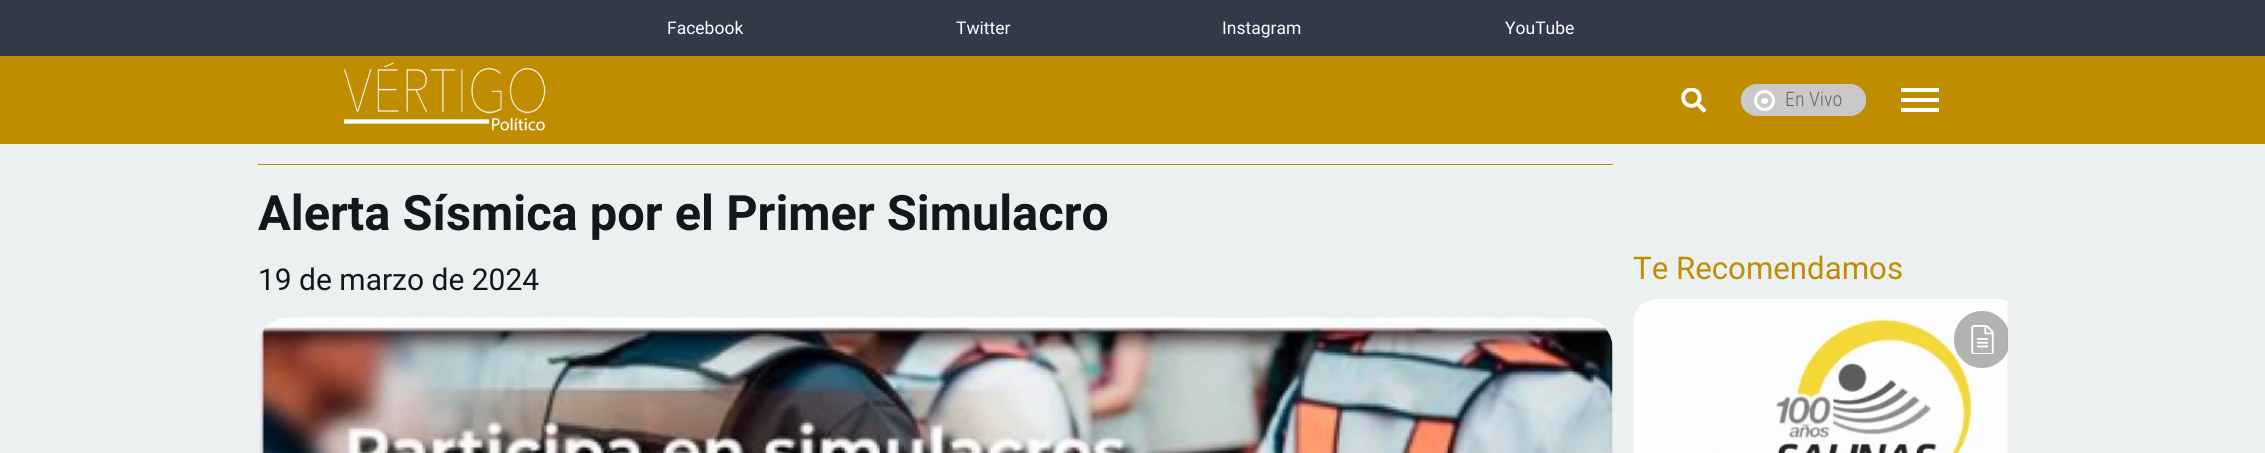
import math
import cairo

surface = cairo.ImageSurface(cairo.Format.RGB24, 2265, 453)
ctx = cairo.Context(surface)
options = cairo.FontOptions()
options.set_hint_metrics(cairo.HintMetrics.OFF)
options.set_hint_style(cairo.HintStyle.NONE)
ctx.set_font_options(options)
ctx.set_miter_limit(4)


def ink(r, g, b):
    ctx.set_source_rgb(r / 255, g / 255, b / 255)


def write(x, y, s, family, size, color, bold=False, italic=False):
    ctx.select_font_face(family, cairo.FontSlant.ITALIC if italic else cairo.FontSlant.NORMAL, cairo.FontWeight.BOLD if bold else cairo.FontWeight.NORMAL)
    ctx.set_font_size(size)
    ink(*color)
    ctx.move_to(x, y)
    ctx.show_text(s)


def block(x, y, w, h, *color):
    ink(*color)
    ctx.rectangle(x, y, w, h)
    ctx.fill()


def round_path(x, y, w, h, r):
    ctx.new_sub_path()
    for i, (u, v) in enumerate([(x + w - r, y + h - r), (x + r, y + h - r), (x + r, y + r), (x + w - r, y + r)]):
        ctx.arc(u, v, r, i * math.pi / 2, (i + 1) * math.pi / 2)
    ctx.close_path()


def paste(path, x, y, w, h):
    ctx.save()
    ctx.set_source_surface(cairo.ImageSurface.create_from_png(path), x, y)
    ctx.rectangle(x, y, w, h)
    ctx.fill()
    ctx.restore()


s1 = dict(family="Roboto", size=17.5, color=(255, 255, 255))
s2 = dict(family="Roboto Condensed Light", size=20, color=(102, 102, 102))
s3 = dict(family="Roboto", size=48.75, color=(20, 23, 26), bold=True)
s4 = dict(family="Roboto", size=30, color=(20, 23, 26))
s5 = dict(family="Roboto", size=31.25, color=(192, 141, 0))

ink(236, 240, 241)
ctx.paint()
block(0, 0, 2265, 56, 50, 57, 73)
write(667, 34, "Facebook", **s1)
write(956, 34, "Twitter", **s1)
write(1222, 34, "Instagram", **s1)
write(1505, 34, "YouTube", **s1)
block(0, 56, 2265, 88, 192, 141, 0)
paste("pic1.png", 343, 61, 203, 70)
paste("pic2.png", 1681, 88, 25, 25)
ink(201, 201, 201)
round_path(1741, 84, 125, 32, 16)
ctx.fill()
ctx.save()
round_path(1741, 84, 125, 32, 16)
ctx.clip()
block(1741, 88, 125, 23, 201, 201, 201)
ctx.restore()
ctx.arc(1764.5, 100.5, 9, 0, 2 * math.pi)
ink(255, 255, 255)
ctx.set_line_width(3)
ctx.stroke()
round_path(1761, 98, 7, 6, 3)
ctx.fill()
write(1785, 106, "En Vivo", **s2)
block(1901, 88, 38, 4, 255, 255, 255)
block(1901, 98, 38, 4, 255, 255, 255)
block(1901, 108, 38, 4, 255, 255, 255)
block(258, 164, 1355, 1, 192, 141, 0)
write(258, 230, "Alerta Sísmica por el Primer Simulacro", **s3)
write(258, 290, "19 de marzo de 2024", **s4)
paste("pic3.png", 258, 317, 1355, 136)
write(1633, 279, "Te Recomendamos", **s5)
paste("pic4.png", 1633, 299, 375, 154)
ctx.save()
ctx.rectangle(258, 144, 1750, 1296)
ctx.clip()
ctx.set_source_rgba(0, 0, 0, 0.3)
round_path(1954, 311, 56, 57, 28)
ctx.fill()
ctx.restore()
paste("pic5.png", 1971, 325, 23, 29)
surface.write_to_png("screenshot.png")
